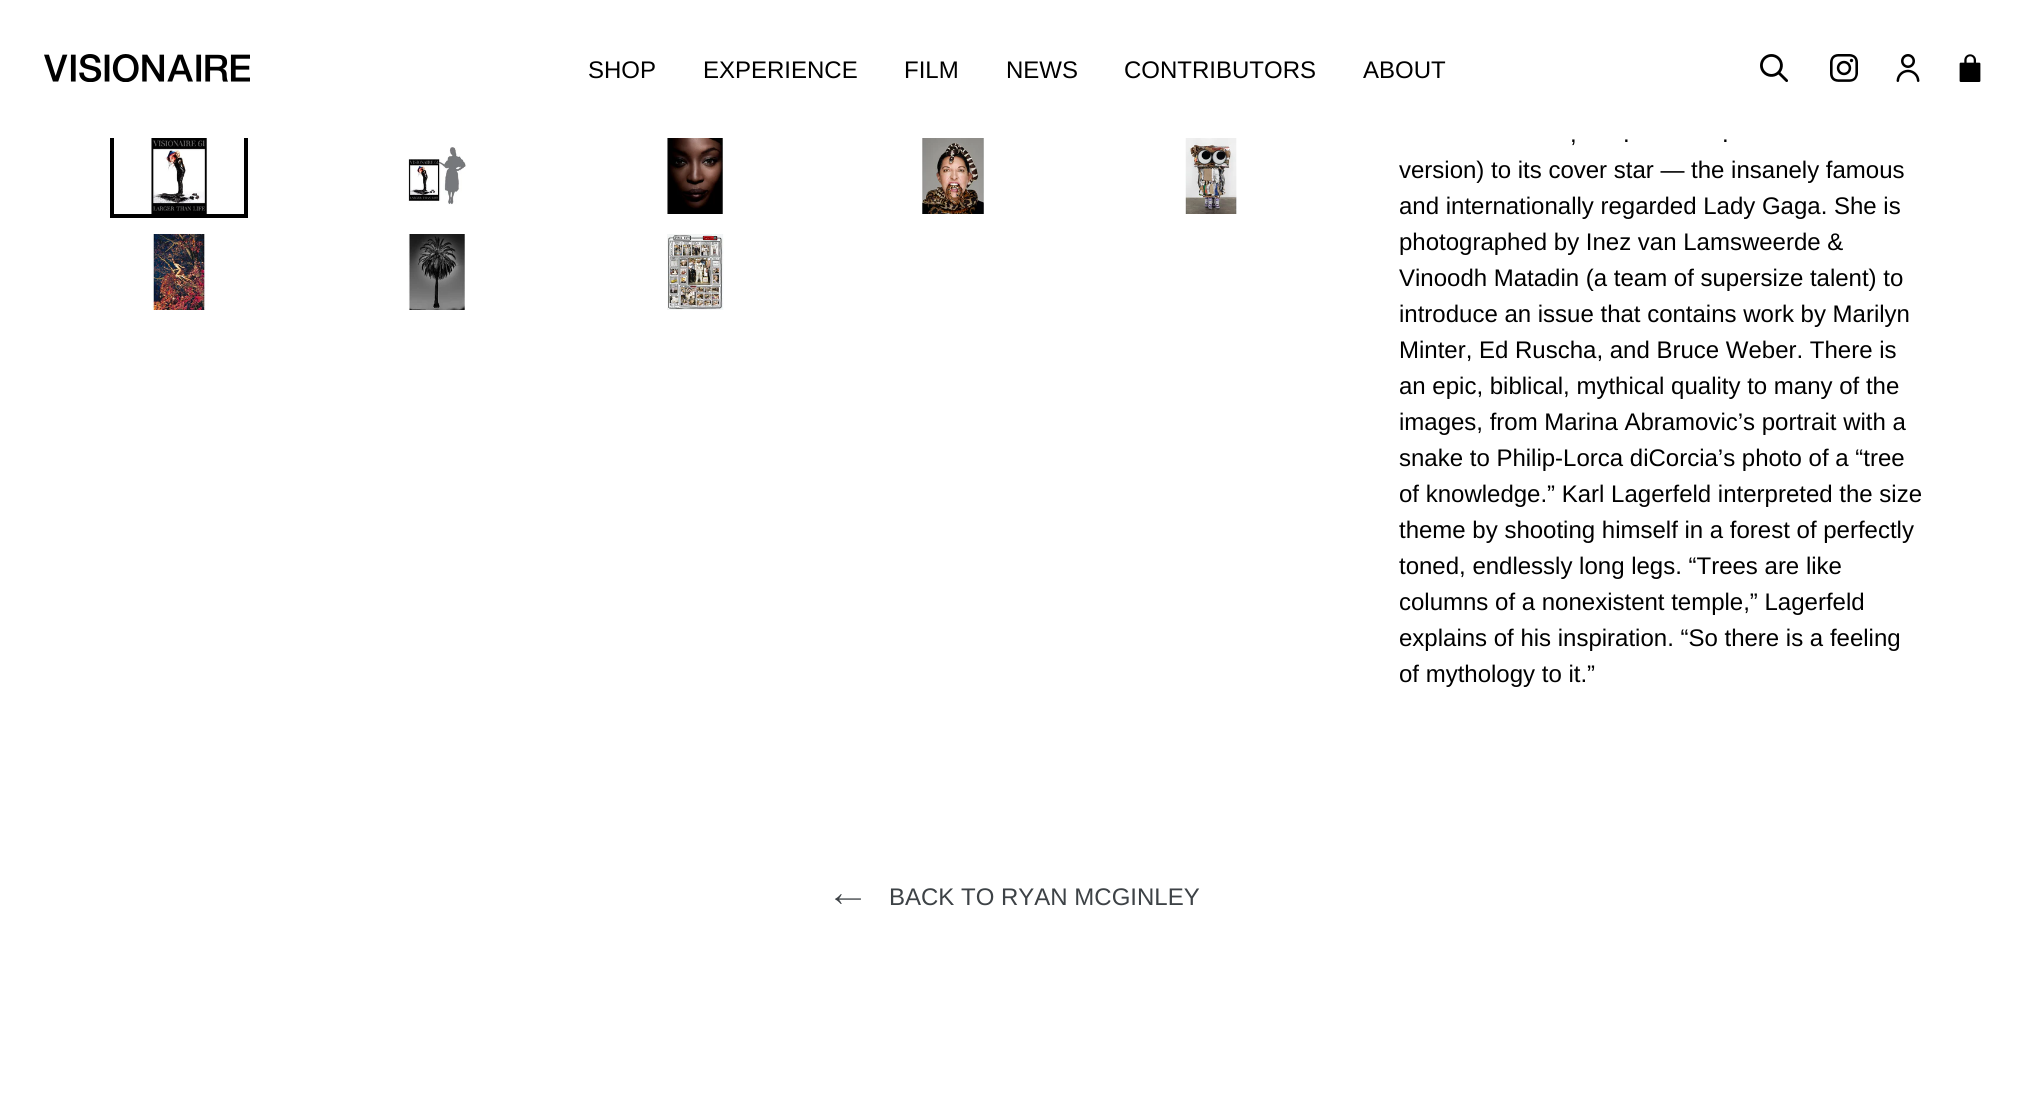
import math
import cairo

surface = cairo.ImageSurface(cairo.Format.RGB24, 2033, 1118)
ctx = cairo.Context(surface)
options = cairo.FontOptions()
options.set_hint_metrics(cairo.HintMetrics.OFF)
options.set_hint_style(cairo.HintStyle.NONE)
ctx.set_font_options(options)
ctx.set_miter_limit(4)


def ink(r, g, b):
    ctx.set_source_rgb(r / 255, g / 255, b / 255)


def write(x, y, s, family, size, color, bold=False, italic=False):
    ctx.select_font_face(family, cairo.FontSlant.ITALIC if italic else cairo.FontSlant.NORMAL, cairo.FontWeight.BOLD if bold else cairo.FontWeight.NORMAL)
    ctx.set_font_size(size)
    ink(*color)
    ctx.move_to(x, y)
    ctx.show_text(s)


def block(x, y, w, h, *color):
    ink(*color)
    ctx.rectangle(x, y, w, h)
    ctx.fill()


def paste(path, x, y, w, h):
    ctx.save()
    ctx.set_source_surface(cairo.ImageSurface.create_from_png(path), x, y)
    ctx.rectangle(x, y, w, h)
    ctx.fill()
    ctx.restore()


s1 = dict(family="Liberation Sans", size=24, color=(0, 0, 0))
s2 = dict(family="Liberation Sans", size=24, color=(61, 66, 70))

ink(255, 255, 255)
ctx.paint()
ctx.rectangle(112, 136, 134, 80)
ink(0, 0, 0)
ctx.set_line_width(4)
ctx.stroke()
block(110, 134, 138, 4, 255, 255, 255)
paste("pic1.png", 44, 54, 206, 28)
write(588, 78, "SHOP", **s1)
write(703, 78, "EXPERIENCE", **s1)
write(904, 78, "FILM", **s1)
write(1006, 78, "NEWS", **s1)
write(1124, 78, "CONTRIBUTORS", **s1)
write(1363, 78, "ABOUT", **s1)
paste("pic2.png", 1760, 54, 28, 28)
paste("pic3.png", 1830, 54, 28, 28)
paste("pic4.png", 1896, 54, 24, 28)
paste("pic5.png", 1959, 54, 22, 28)
paste("pic6.png", 151, 138, 57, 76)
paste("pic7.png", 408, 147, 58, 58)
paste("pic8.png", 667, 138, 56, 76)
paste("pic9.png", 922, 138, 62, 76)
paste("pic10.png", 1185, 138, 52, 76)
paste("pic11.png", 152, 234, 57, 76)
paste("pic12.png", 408, 234, 57, 76)
paste("pic13.png", 667, 234, 57, 76)
write(1570, 142, ",", **s1)
write(1623, 142, ".", **s1)
write(1722, 142, ".", **s1)
write(1399, 178, "version) to its cover star — the insanely famous", **s1)
write(1399, 214, "and internationally regarded Lady Gaga. She is", **s1)
write(1399, 250, "photographed by Inez van Lamsweerde &", **s1)
write(1399, 286, "Vinoodh Matadin (a team of supersize talent) to", **s1)
write(1399, 322, "introduce an issue that contains work by Marilyn", **s1)
write(1399, 358, "Minter, Ed Ruscha, and Bruce Weber. There is", **s1)
write(1399, 394, "an epic, biblical, mythical quality to many of the", **s1)
write(1399, 430, "images, from Marina Abramovic’s portrait with a", **s1)
write(1399, 466, "snake to Philip-Lorca diCorcia’s photo of a “tree", **s1)
write(1399, 502, "of knowledge.” Karl Lagerfeld interpreted the size", **s1)
write(1399, 538, "theme by shooting himself in a forest of perfectly", **s1)
write(1399, 574, "toned, endlessly long legs. “Trees are like", **s1)
write(1399, 610, "columns of a nonexistent temple,” Lagerfeld", **s1)
write(1399, 646, "explains of his inspiration. “So there is a feeling", **s1)
write(1399, 682, "of mythology to it.”", **s1)
paste("pic14.png", 835, 894, 26, 10)
write(889, 905, "BACK TO RYAN MCGINLEY", **s2)
surface.write_to_png("screenshot.png")
